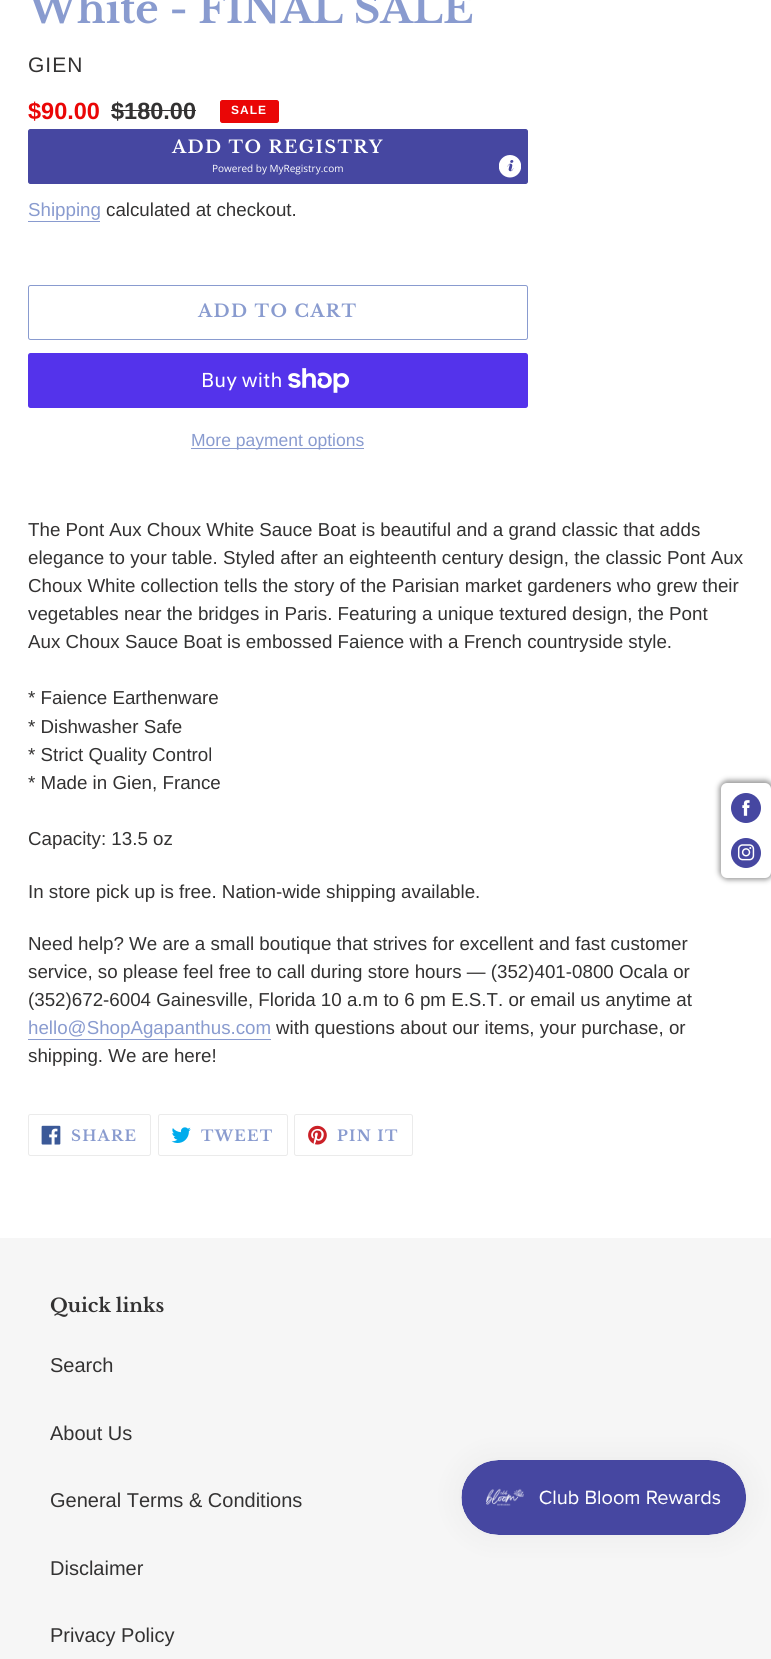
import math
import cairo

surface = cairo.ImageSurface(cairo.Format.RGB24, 771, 1659)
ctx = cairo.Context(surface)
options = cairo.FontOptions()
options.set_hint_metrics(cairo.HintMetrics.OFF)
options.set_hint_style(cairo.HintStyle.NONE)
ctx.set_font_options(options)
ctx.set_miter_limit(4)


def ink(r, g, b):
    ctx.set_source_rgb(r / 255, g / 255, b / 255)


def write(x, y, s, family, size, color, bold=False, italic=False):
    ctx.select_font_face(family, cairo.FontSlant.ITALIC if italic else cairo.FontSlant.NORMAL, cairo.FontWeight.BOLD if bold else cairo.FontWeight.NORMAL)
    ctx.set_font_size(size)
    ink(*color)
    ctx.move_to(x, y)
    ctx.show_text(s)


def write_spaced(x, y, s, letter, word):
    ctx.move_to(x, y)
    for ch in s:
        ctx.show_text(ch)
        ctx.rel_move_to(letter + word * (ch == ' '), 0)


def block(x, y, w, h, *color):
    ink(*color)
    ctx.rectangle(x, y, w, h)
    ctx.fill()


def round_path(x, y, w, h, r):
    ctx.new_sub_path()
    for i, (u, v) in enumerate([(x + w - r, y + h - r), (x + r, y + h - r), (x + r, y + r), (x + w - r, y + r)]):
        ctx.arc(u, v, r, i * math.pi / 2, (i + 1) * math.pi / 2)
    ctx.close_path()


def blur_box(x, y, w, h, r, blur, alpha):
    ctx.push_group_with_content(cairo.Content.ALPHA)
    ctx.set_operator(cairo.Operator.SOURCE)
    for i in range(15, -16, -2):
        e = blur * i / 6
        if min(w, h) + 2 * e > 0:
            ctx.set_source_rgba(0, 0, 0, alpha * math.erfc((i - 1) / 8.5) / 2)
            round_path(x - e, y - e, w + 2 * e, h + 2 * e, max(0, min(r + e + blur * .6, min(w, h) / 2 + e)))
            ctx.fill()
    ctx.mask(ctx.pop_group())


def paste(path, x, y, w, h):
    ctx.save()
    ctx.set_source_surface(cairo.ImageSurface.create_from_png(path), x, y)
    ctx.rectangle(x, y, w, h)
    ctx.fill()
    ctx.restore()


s1 = dict(family="Libre Baskerville", size=40, color=(137, 155, 207), bold=True)
s2 = dict(family="Liberation Sans", size=23.5, color=(234, 6, 6), bold=True)
s3 = dict(family="Liberation Sans", size=23.5, color=(51, 50, 50), bold=True)
s4 = dict(family="Open Sans", size=10, color=(255, 255, 255))
s5 = dict(family="Liberation Sans", size=18.75, color=(137, 155, 207))
s6 = dict(family="Liberation Sans", size=18.75, color=(51, 50, 50))
s7 = dict(family="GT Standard", size=20, color=(255, 255, 255))
s8 = dict(family="Liberation Sans", size=17.5, color=(137, 155, 207))
s9 = dict(family="Libre Baskerville", size=18.75, color=(51, 50, 50), bold=True)
s10 = dict(family="Liberation Sans", size=20, color=(51, 50, 50))

ink(255, 255, 255)
ctx.paint()
write(28, 23, "White - FINAL SALE", **s1)
ctx.select_font_face("Liberation Sans")
ctx.set_font_size(21)
ink(51, 50, 50)
write_spaced(28, 72, "GIEN", 1, 0)
write(28, 119, "$90.00", **s2)
write(111, 119, "$180.00", **s3)
block(111, 110, 85, 1, 51, 50, 50)
ink(234, 6, 6)
round_path(220.5, 100.5, 58, 22, 2)
ctx.fill_preserve()
ctx.set_line_width(1)
ctx.stroke()
ctx.set_font_size(12)
ink(255, 255, 255)
write_spaced(231, 114, "SALE", 1, 0)
ink(70, 71, 161)
round_path(28.5, 129.5, 499, 54, 2)
ctx.fill_preserve()
ctx.stroke()
ctx.select_font_face("Libre Baskerville", cairo.FontSlant.NORMAL, cairo.FontWeight.BOLD)
ctx.set_font_size(17.5)
ink(255, 255, 255)
write_spaced(172, 153, "ADD TO REGISTRY", 1.4, 0)
write(212, 172, "Powered by MyRegistry.com", **s4)
paste("pic1.png", 499, 155, 22, 23)
write(28, 216, "Shipping", **s5)
block(28, 221, 72, 1, 137, 155, 207)
write(106, 216, "calculated at checkout.", **s6)
round_path(28.5, 285.5, 499, 54, 2)
ink(137, 155, 207)
ctx.stroke()
ctx.select_font_face("Libre Baskerville", cairo.FontSlant.NORMAL, cairo.FontWeight.BOLD)
ctx.set_font_size(17.5)
write_spaced(198, 317, "ADD TO CART", 1.4, 0)
ink(84, 51, 235)
round_path(28, 353, 500, 55, 2.5)
ctx.fill()
write(201, 387, "Buy with", **s7)
paste("pic2.png", 288, 368, 62, 25)
block(191, 448, 173, 1, 137, 155, 207)
write(191, 446, "More payment options", **s8)
write(28, 536, "The Pont Aux Choux White Sauce Boat is beautiful and a grand classic that adds", **s6)
write(28, 564, "elegance to your table. Styled after an eighteenth century design, the classic Pont Aux", **s6)
write(28, 592, "Choux White collection tells the story of the Parisian market gardeners who grew their", **s6)
write(28, 620, "vegetables near the bridges in Paris. Featuring a unique textured design, the Pont", **s6)
write(28, 648, "Aux Choux Sauce Boat is embossed Faience with a French countryside style.", **s6)
write(28, 704, "* Faience Earthenware", **s6)
write(28, 733, "* Dishwasher Safe", **s6)
write(28, 761, "* Strict Quality Control", **s6)
write(28, 789, "* Made in Gien, France", **s6)
write(28, 845, "Capacity: 13.5 oz", **s6)
write(28, 898, "In store pick up is free. Nation-wide shipping available.", **s6)
write(28, 950, "Need help? We are a small boutique that strives for excellent and fast customer", **s6)
write(28, 978, "service, so please feel free to call during store hours — (352)401-0800 Ocala or", **s6)
write(28, 1006, "(352)672-6004 Gainesville, Florida 10 a.m to 6 pm E.S.T. or email us anytime at", **s6)
write(28, 1034, "hello@ShopAgapanthus.com", **s5)
block(28, 1039, 243, 1, 137, 155, 207)
write(276, 1034, "with questions about our items, your purchase, or", **s6)
write(28, 1062, "shipping. We are here!", **s6)
round_path(28.5, 1114.5, 122, 41, 2)
ink(235, 235, 235)
ctx.stroke()
paste("pic3.png", 41, 1125, 20, 20)
ctx.select_font_face("Libre Baskerville", cairo.FontSlant.NORMAL, cairo.FontWeight.BOLD)
ctx.set_font_size(15)
ink(137, 155, 207)
write_spaced(71, 1141, "SHARE", 1.25, 0)
round_path(158.5, 1114.5, 129, 41, 2)
ink(235, 235, 235)
ctx.stroke()
paste("pic4.png", 171, 1127, 20, 16)
ink(137, 155, 207)
write_spaced(201, 1141, "TWEET", 1.25, 0)
round_path(294.5, 1114.5, 118, 41, 2)
ink(235, 235, 235)
ctx.stroke()
paste("pic5.png", 308, 1125, 19, 20)
ink(137, 155, 207)
write_spaced(337, 1141, "PIN IT", 1.25, 0)
ink(158, 158, 158)
blur_box(719, 780, 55, 100, 9, 2.5, 1)
ink(255, 255, 255)
round_path(721, 783, 50, 95, 6)
ctx.fill()
paste("pic6.png", 731, 793, 30, 30)
paste("pic7.png", 731, 838, 30, 30)
block(0, 1238, 771, 421, 246, 246, 246)
write(50, 1312, "Quick links", **s9)
write(50, 1372, "Search", **s10)
write(50, 1440, "About Us", **s10)
write(50, 1507, "General Terms & Conditions", **s10)
write(50, 1575, "Disclaimer", **s10)
write(50, 1642, "Privacy Policy", **s10)
ink(0, 0, 0)
blur_box(461, 1460, 285, 75, 37.5, 15.5, 0.05)
paste("pic8.png", 461, 1460, 285, 75)
surface.write_to_png("screenshot.png")
